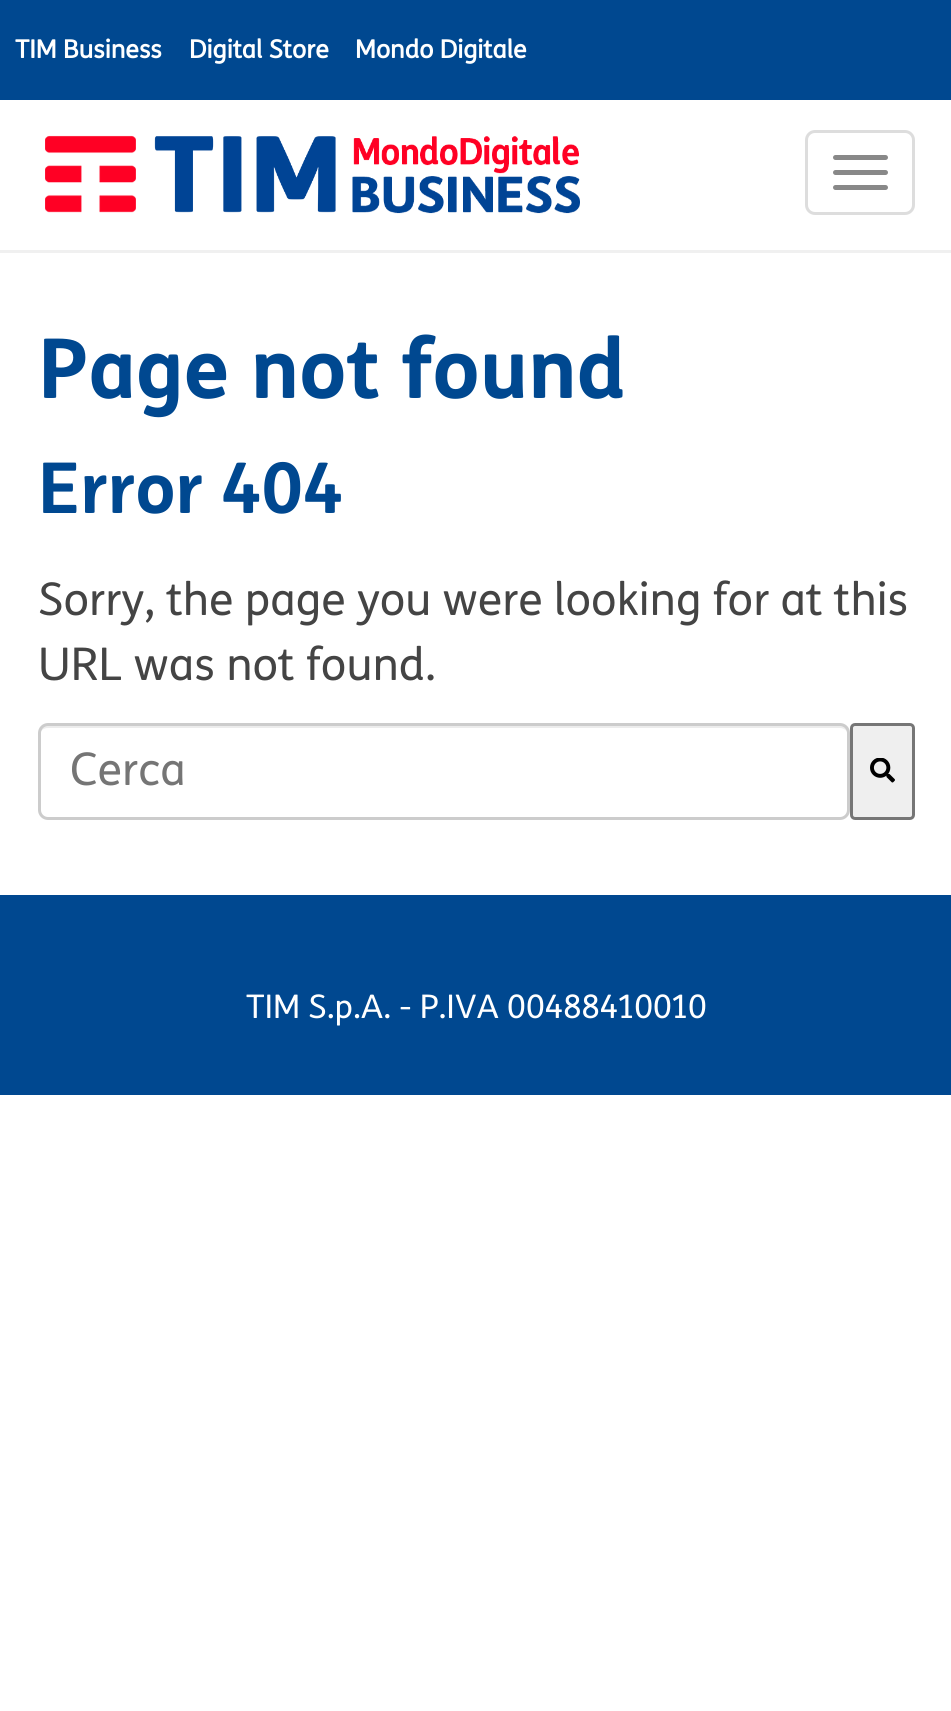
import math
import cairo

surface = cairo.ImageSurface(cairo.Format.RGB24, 951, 1711)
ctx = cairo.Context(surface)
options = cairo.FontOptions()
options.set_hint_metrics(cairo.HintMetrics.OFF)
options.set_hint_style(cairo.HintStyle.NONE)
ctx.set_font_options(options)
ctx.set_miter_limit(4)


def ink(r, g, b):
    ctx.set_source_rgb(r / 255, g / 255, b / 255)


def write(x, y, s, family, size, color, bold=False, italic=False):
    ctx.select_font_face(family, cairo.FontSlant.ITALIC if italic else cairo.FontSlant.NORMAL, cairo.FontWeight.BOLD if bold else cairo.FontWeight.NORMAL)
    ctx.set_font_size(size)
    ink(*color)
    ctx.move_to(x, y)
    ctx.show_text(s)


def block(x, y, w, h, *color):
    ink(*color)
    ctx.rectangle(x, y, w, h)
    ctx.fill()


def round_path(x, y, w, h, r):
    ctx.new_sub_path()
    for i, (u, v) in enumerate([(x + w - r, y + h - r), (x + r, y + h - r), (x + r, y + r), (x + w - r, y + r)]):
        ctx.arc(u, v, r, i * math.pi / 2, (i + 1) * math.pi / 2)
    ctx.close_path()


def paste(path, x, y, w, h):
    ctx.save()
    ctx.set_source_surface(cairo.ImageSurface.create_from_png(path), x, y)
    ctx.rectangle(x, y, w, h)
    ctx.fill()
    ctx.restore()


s1 = dict(family="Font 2", size=25, color=(255, 255, 255), bold=True)
s2 = dict(family="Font", size=82.5, color=(0, 72, 144), bold=True)
s3 = dict(family="Font", size=70, color=(0, 72, 144), bold=True)
s4 = dict(family="Font", size=45, color=(68, 68, 68))
s5 = dict(family="Font", size=45, color=(117, 117, 117))
s6 = dict(family="Font", size=32.5, color=(255, 255, 255))

ink(255, 255, 255)
ctx.paint()
block(0, 250, 951, 3, 240, 240, 240)
block(0, 0, 951, 100, 0, 72, 144)
write(15, 58, "TIM Business", **s1)
write(189, 58, "Digital Store", **s1)
write(355, 58, "Mondo Digitale", **s1)
paste("pic1.png", 45, 135, 535, 79)
round_path(806.5, 131.5, 107, 82, 8.5)
ink(221, 221, 221)
ctx.set_line_width(3)
ctx.stroke()
ink(136, 136, 136)
round_path(833, 170, 55, 5, 2.5)
ctx.fill()
round_path(833, 155, 55, 5, 2.5)
ctx.fill()
round_path(833, 185, 55, 5, 2.5)
ctx.fill()
write(38, 398, "Page not found", **s2)
write(38, 513, "Error 404", **s3)
write(38, 615, "Sorry, the page you were looking for at this", **s4)
write(38, 680, "URL was not found.", **s4)
ink(236, 236, 236)
ctx.new_path()
ctx.move_to(48, 728)
ctx.line_to(840, 728)
ctx.curve_to(844, 728, 848, 731, 848, 735)
ctx.curve_to(848, 730, 846, 725, 840, 725)
ctx.line_to(48, 725)
ctx.curve_to(42, 725, 40, 730, 40, 735)
ctx.curve_to(40, 731, 43, 728, 48, 728)
ctx.close_path()
ctx.fill()
round_path(39.5, 724.5, 809, 94, 8.5)
ink(204, 204, 204)
ctx.stroke()
write(70, 785, "Cerca", **s5)
ink(239, 239, 239)
round_path(851.5, 724.5, 62, 94, 3.5)
ctx.fill_preserve()
ink(118, 118, 118)
ctx.stroke()
paste("pic2.png", 870, 758, 25, 25)
block(0, 895, 951, 200, 0, 72, 144)
write(246, 1018, "TIM S.p.A. - P.IVA 00488410010", **s6)
surface.write_to_png("screenshot.png")
